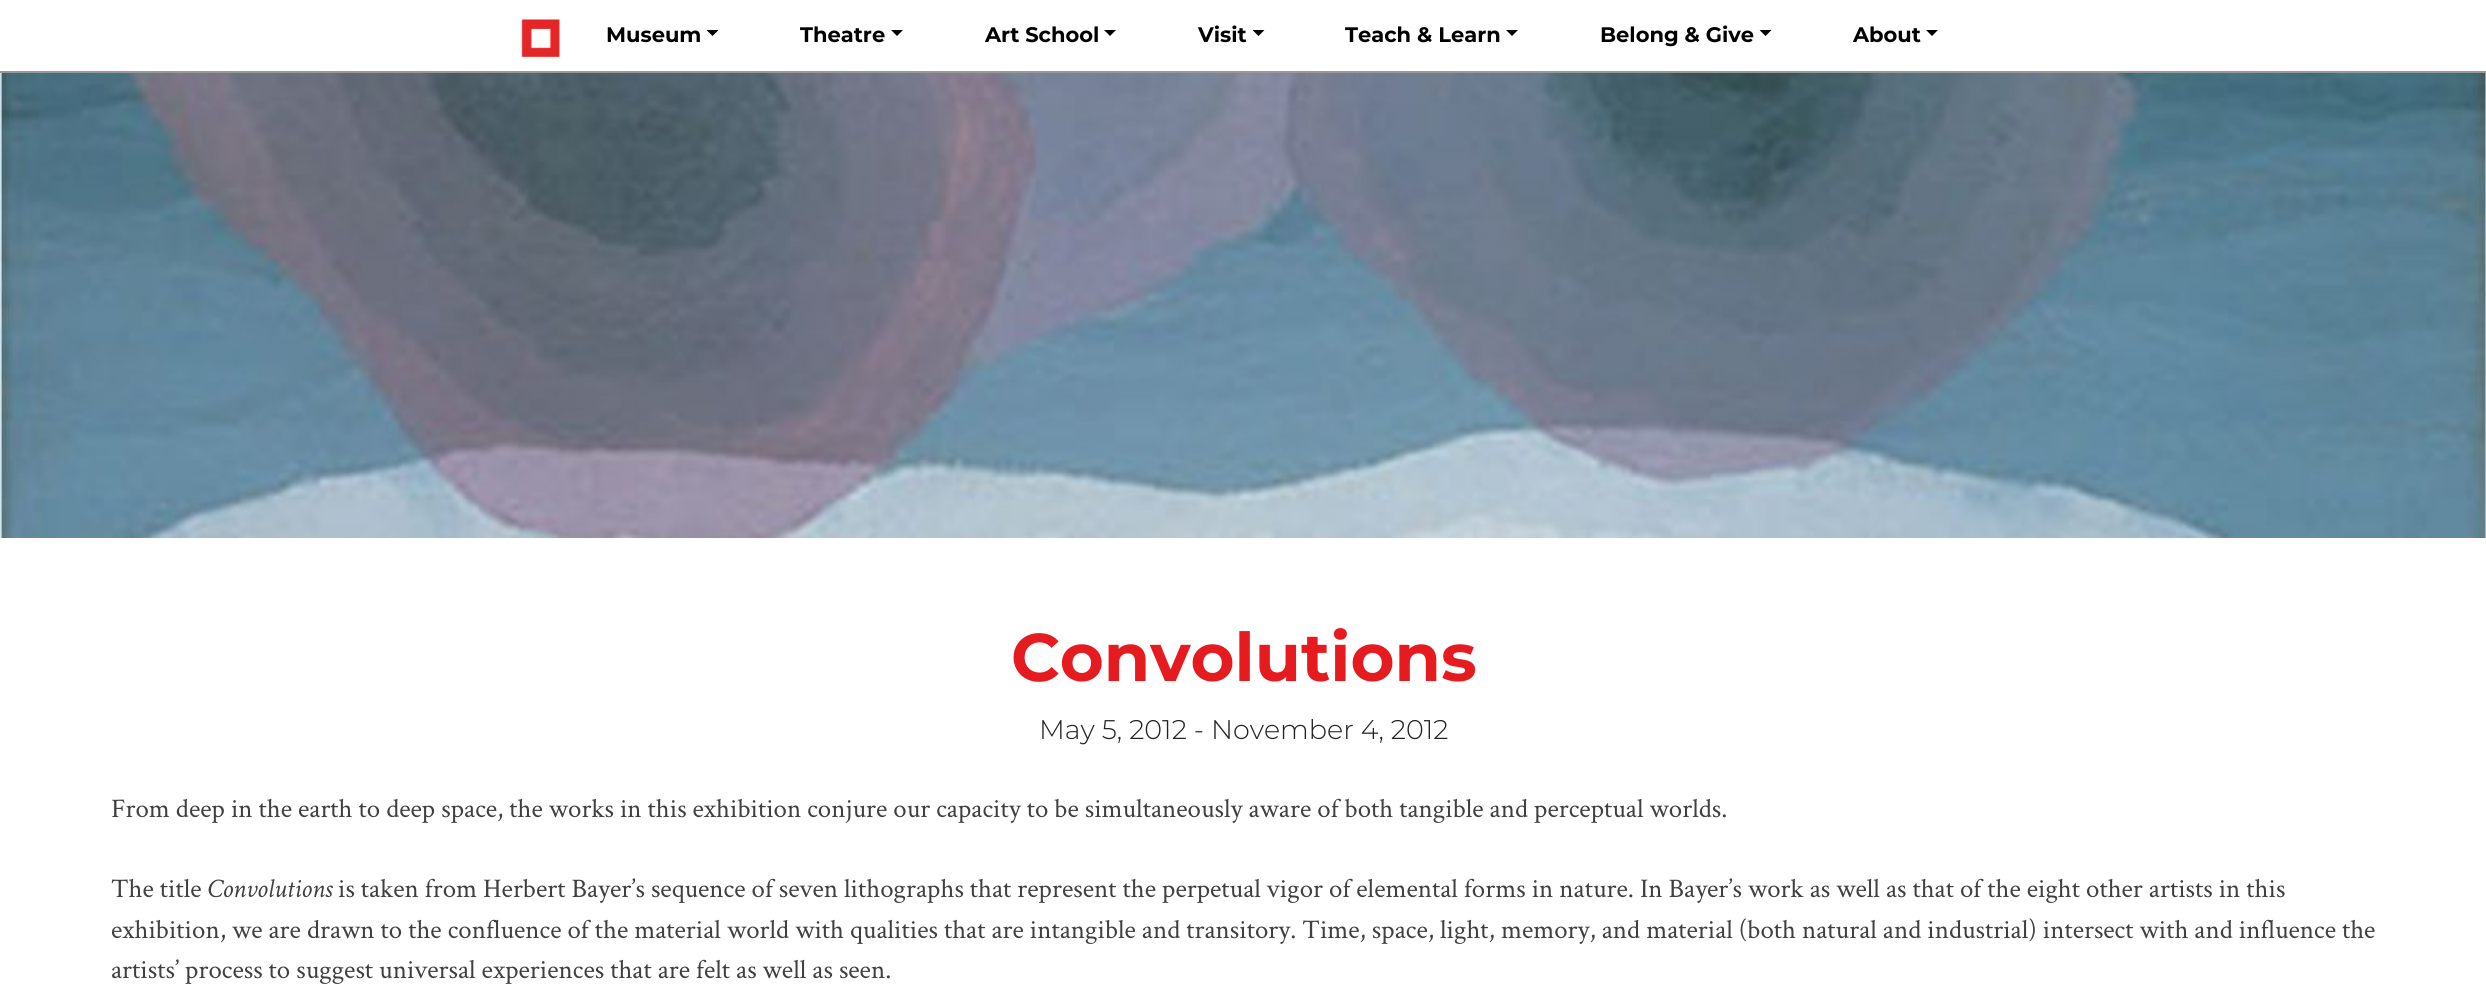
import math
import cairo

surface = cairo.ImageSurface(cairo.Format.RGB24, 2486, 984)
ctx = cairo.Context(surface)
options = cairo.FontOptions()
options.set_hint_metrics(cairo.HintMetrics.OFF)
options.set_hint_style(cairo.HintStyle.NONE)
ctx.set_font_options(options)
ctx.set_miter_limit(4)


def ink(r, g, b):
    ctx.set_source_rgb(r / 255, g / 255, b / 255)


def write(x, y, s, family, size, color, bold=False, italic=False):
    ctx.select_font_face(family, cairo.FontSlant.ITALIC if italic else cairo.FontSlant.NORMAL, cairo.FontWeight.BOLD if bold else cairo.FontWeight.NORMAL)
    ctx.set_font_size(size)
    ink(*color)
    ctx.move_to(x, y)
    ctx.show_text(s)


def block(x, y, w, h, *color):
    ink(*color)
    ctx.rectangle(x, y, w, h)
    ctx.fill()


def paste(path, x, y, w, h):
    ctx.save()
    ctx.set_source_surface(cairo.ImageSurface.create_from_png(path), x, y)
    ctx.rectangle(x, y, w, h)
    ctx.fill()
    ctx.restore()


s1 = dict(family="Montserrat", size=21, color=(0, 0, 0), bold=True)
s2 = dict(family="Montserrat", size=67.25, color=(229, 27, 31), bold=True)
s3 = dict(family="Montserrat Light", size=27, color=(34, 34, 34))
s4 = dict(family="Crimson Text", size=26.88, color=(64, 64, 64))
s5 = dict(family="Crimson Text", size=26.88, color=(64, 64, 64), italic=True)

ink(255, 255, 255)
ctx.paint()
block(0, 71, 2486, 2, 153, 153, 153)
paste("pic1.png", 521, 19, 39, 38)
write(606, 42, "Museum", **s1)
ctx.new_path()
ctx.move_to(706.5, 30)
ctx.line_to(718.5, 30)
ctx.line_to(712.5, 36)
ctx.close_path()
ctx.fill()
write(800, 42, "Theatre", **s1)
ctx.new_path()
ctx.move_to(891, 30)
ctx.line_to(903, 30)
ctx.line_to(897, 36)
ctx.close_path()
ctx.fill()
write(985, 42, "Art School", **s1)
ctx.new_path()
ctx.move_to(1104, 30)
ctx.line_to(1116, 30)
ctx.line_to(1110, 36)
ctx.close_path()
ctx.fill()
write(1198, 42, "Visit", **s1)
ctx.new_path()
ctx.move_to(1252.5, 30)
ctx.line_to(1264.5, 30)
ctx.line_to(1258.5, 36)
ctx.close_path()
ctx.fill()
write(1345, 42, "Teach & Learn", **s1)
ctx.new_path()
ctx.move_to(1506, 30)
ctx.line_to(1518, 30)
ctx.line_to(1512, 36)
ctx.close_path()
ctx.fill()
write(1600, 42, "Belong & Give", **s1)
ctx.new_path()
ctx.move_to(1759.5, 30)
ctx.line_to(1771.5, 30)
ctx.line_to(1765.5, 36)
ctx.close_path()
ctx.fill()
write(1853, 42, "About", **s1)
ctx.new_path()
ctx.move_to(1926, 30)
ctx.line_to(1938, 30)
ctx.line_to(1932, 36)
ctx.close_path()
ctx.fill()
paste("pic2.png", 0, 73, 2486, 465)
write(1011, 681, "Convolutions", **s2)
write(1039, 739, "May 5, 2012 - November 4, 2012", **s3)
write(111, 817, "From deep in the earth to deep space, the works in this exhibition conjure our capacity to be simultaneously aware of both tangible and perceptual worlds.", **s4)
write(111, 897, "The title", **s4)
write(207, 897, "Convolutions", **s5)
write(338, 897, "is taken from Herbert Bayer’s sequence of seven lithographs that represent the perpetual vigor of elemental forms in nature. In Bayer’s work as well as that of the eight other artists in this", **s4)
write(111, 938, "exhibition, we are drawn to the confluence of the material world with qualities that are intangible and transitory. Time, space, light, memory, and material (both natural and industrial) intersect with and influence the", **s4)
write(111, 978, "artists’ process to suggest universal experiences that are felt as well as seen.", **s4)
surface.write_to_png("screenshot.png")
